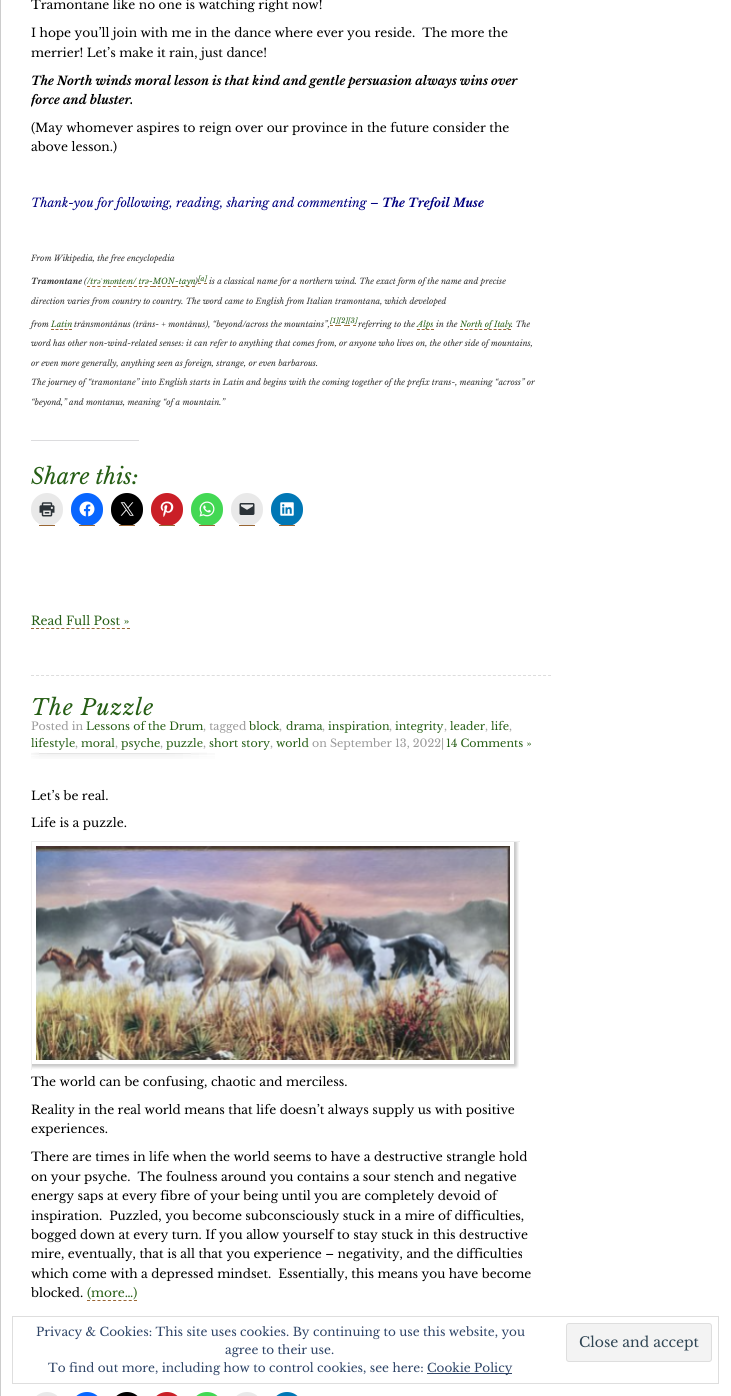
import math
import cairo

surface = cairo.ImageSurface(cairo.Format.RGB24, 731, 1396)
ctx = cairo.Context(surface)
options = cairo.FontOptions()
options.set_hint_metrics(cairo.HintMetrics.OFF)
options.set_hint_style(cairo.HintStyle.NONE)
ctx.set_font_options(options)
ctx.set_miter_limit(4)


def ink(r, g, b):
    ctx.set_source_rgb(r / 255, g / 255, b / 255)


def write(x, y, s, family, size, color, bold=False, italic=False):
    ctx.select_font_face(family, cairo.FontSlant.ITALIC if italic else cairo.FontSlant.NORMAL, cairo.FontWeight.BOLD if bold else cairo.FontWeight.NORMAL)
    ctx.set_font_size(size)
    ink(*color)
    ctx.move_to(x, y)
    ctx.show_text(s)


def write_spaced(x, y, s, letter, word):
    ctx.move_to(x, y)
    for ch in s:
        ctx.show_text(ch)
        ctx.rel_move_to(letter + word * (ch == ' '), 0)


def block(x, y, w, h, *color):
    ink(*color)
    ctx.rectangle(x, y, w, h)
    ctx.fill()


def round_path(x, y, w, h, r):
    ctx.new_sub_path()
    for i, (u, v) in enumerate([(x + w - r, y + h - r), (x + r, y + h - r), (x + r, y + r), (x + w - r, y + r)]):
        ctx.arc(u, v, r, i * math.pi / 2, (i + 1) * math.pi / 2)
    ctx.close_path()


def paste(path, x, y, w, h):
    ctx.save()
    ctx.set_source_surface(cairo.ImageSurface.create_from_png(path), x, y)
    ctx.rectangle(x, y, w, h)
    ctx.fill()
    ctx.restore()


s1 = dict(family="Libre Baskerville", size=12.15, color=(0, 0, 0))
s2 = dict(family="Libre Baskerville", size=12.15, color=(0, 0, 0), bold=True, italic=True)
s3 = dict(family="Libre Baskerville", size=12.15, color=(0, 0, 128), italic=True)
s4 = dict(family="Libre Baskerville", size=12.15, color=(0, 0, 128))
s5 = dict(family="Libre Baskerville", size=12.15, color=(0, 0, 128), bold=True, italic=True)
s6 = dict(family="Libre Baskerville", size=8.15, color=(51, 51, 51), italic=True)
s7 = dict(family="Libre Baskerville", size=8.15, color=(51, 51, 51), bold=True, italic=True)
s8 = dict(family="Libre Baskerville", size=7, color=(38, 94, 21), italic=True)
s9 = dict(family="Libre Baskerville", size=8.15, color=(38, 94, 21), italic=True)
s10 = dict(family="Liberation Serif", size=8.15, color=(38, 94, 21), italic=True)
s11 = dict(family="Libre Baskerville", size=22, color=(38, 94, 21), italic=True)
s12 = dict(family="Libre Baskerville", size=12.15, color=(38, 94, 21))
s13 = dict(family="Libre Baskerville", size=11, color=(153, 153, 153))
s14 = dict(family="Libre Baskerville", size=11, color=(38, 94, 21))
s15 = dict(family="Libre Baskerville", size=12, color=(46, 68, 103))
s16 = dict(family="Libre Baskerville", size=14, color=(46, 68, 83))

ink(255, 255, 255)
ctx.paint()
ctx.rectangle(0.5, -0.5, 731, 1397)
ink(204, 204, 204)
ctx.set_line_width(1)
ctx.stroke()
ctx.new_path()
ctx.move_to(31, 675.5)
ctx.line_to(551, 675.5)
ink(221, 221, 221)
ctx.set_dash([3, 2.02])
ctx.stroke()
write(31, 9, "Tramontane like no one is watching right now!", **s1)
write(31, 37, "I hope you’ll join with me in the dance where ever you reside.  The more the", **s1)
write(31, 57, "merrier! Let’s make it rain, just dance!", **s1)
write(31, 85, "The North winds moral lesson is that kind and gentle persuasion always wins over", **s2)
ctx.save()
ctx.rectangle(31, 0, 520, 639)
ctx.clip()
write(31, 104, "force and bluster.", **s2)
ctx.restore()
write(31, 132, "(May whomever aspires to reign over our province in the future consider the", **s1)
write(31, 151, "above lesson.)", **s1)
write(31, 207, "Thank-you for following, reading, sharing and commenting", **s3)
write(370, 207, "–", **s4)
write(382, 207, "The Trefoil Muse", **s5)
write(31, 261, "From Wikipedia, the free encyclopedia", **s6)
write(31, 284, "Tramontane", **s7)
write(84, 284, "(", **s6)
write(198, 281, "[a]", **s8)
ctx.new_path()
ctx.move_to(198, 283.5)
ctx.line_to(201, 283.5)
ctx.move_to(204, 283.5)
ctx.line_to(207, 283.5)
ink(153, 102, 51)
ctx.set_dash([])
ctx.stroke()
write(87, 284, "/tr", **s9)
write(97, 284, "əˈ", **s10)
write(110, 284, "ɒ", **s10)
write(114, 284, "nte", **s9)
write(126, 284, "ɪ", **s10)
write(128, 284, "n/ trə-MON", **s9)
ctx.new_path()
ctx.move_to(175, 286.5)
ctx.line_to(195, 286.5)
ink(153, 102, 51)
ctx.set_dash([3, 2.67])
ctx.stroke()
write(175, 284, "-tayn", **s9)
write(195, 284, ")", **s6)
write(209, 284, "is a classical name for a northern wind. The exact form of the name and precise", **s6)
write(103, 284, "m", **s9)
ctx.new_path()
ctx.move_to(87, 286.5)
ctx.line_to(137, 286.5)
ink(153, 102, 51)
ctx.set_dash([3, 2.22])
ctx.stroke()
ctx.new_path()
ctx.move_to(139, 286.5)
ctx.line_to(142, 286.5)
ctx.move_to(144.5, 286.5)
ctx.line_to(147.5, 286.5)
ctx.move_to(150, 286.5)
ctx.line_to(153, 286.5)
ctx.set_dash([])
ctx.stroke()
ctx.new_path()
ctx.move_to(153, 286.5)
ctx.line_to(175, 286.5)
ctx.set_dash([3, 1.75])
ctx.stroke()
write(31, 304, "direction varies from country to country. The word came to English from Italian tramontana, which developed", **s6)
write(31, 327, "from", **s6)
write(51, 327, "Latin", **s9)
ctx.new_path()
ctx.move_to(51, 329.5)
ctx.line_to(72, 329.5)
ink(153, 102, 51)
ctx.set_dash([3, 1.5])
ctx.stroke()
write(74, 327, "trānsmontānus (trāns- + montānus), “beyond/across the mountains”,", **s6)
write(330, 323, "[1][2][3]", **s8)
ctx.new_path()
ctx.move_to(330, 325.5)
ctx.line_to(333, 325.5)
ctx.move_to(335, 325.5)
ctx.line_to(338, 325.5)
ink(153, 102, 51)
ctx.set_dash([])
ctx.stroke()
ctx.new_path()
ctx.move_to(338, 325.5)
ctx.line_to(341, 325.5)
ctx.move_to(344, 325.5)
ctx.line_to(347, 325.5)
ctx.move_to(347, 325.5)
ctx.line_to(350, 325.5)
ctx.move_to(353, 325.5)
ctx.line_to(356, 325.5)
ctx.stroke()
write(358, 327, "referring to the", **s6)
ctx.new_path()
ctx.move_to(417, 329.5)
ctx.line_to(434, 329.5)
ink(153, 102, 51)
ctx.set_dash([3, 1.67])
ctx.stroke()
write(417, 327, "Alps", **s9)
write(436, 327, "in the", **s6)
ctx.new_path()
ctx.move_to(460, 329.5)
ctx.line_to(511, 329.5)
ink(153, 102, 51)
ctx.set_dash([3, 1.8])
ctx.stroke()
write(460, 327, "North of Italy", **s9)
write(511, 327, ". The", **s6)
write(31, 346, "word has other non-wind-related senses: it can refer to anything that comes from, or anyone who lives on, the other side of mountains,", **s6)
write(31, 366, "or even more generally, anything seen as foreign, strange, or even barbarous.", **s6)
write(31, 385, "The journey of “tramontane” into English starts in Latin and begins with the coming together of the prefix trans-, meaning “across” or", **s6)
write(31, 405, "“beyond,” and montanus, meaning “of a mountain.”", **s6)
block(31, 440, 108, 1, 220, 220, 222)
write(31, 484, "Share this:", **s11)
ink(233, 233, 233)
round_path(31, 493, 32, 33, 16)
ctx.fill()
block(39, 525, 16, 1, 153, 102, 51)
paste("pic1.png", 39, 502, 16, 15)
ink(8, 102, 255)
round_path(71, 493, 32, 33, 16)
ctx.fill()
block(79, 525, 16, 1, 153, 102, 51)
paste("pic2.png", 79, 501, 16, 16)
ink(0, 0, 0)
round_path(111, 493, 32, 33, 16)
ctx.fill()
block(119, 525, 16, 1, 153, 102, 51)
paste("pic3.png", 120, 502, 14, 14)
ink(202, 31, 39)
round_path(151, 493, 32, 33, 16)
ctx.fill()
block(159, 525, 16, 1, 153, 102, 51)
paste("pic4.png", 160, 501, 14, 16)
ink(67, 216, 84)
round_path(191, 493, 32, 33, 16)
ctx.fill()
block(199, 525, 16, 1, 153, 102, 51)
paste("pic5.png", 199, 501, 16, 16)
ink(233, 233, 233)
round_path(231, 493, 32, 33, 16)
ctx.fill()
block(239, 525, 16, 1, 153, 102, 51)
paste("pic6.png", 239, 503, 16, 12)
ink(0, 119, 181)
round_path(271, 493, 32, 33, 16)
ctx.fill()
block(279, 525, 16, 1, 153, 102, 51)
paste("pic7.png", 280, 502, 14, 14)
write(31, 625, "Read Full Post »", **s12)
ctx.new_path()
ctx.move_to(31, 628.5)
ctx.line_to(130, 628.5)
ink(153, 102, 51)
ctx.set_dash([3, 2.05])
ctx.stroke()
ctx.select_font_face("Libre Baskerville", cairo.FontSlant.ITALIC)
ctx.set_font_size(22)
ink(38, 94, 21)
write_spaced(31, 715, "The Puzzle", 1, 0)
paste("pic8.png", 31, 752, 184, 7)
write(31, 730, "Posted in", **s13)
write(86, 730, "Lessons of the Drum", **s14)
write(203, 730, ", tagged", **s13)
write(249, 730, "block", **s14)
write(279, 730, ",", **s13)
write(286, 730, "drama", **s14)
write(322, 730, ",", **s13)
write(328, 730, "inspiration", **s14)
write(389, 730, ",", **s13)
write(395, 730, "integrity", **s14)
write(444, 730, ",", **s13)
write(450, 730, "leader", **s14)
write(485, 730, ",", **s13)
write(491, 730, "life", **s14)
write(509, 730, ",", **s13)
write(31, 747, "lifestyle", **s14)
write(75, 747, ",", **s13)
write(81, 747, "moral", **s14)
write(115, 747, ",", **s13)
write(121, 747, "psyche", **s14)
write(160, 747, ",", **s13)
write(166, 747, "puzzle", **s14)
write(203, 747, ",", **s13)
write(209, 747, "short story", **s14)
write(270, 747, ",", **s13)
write(276, 747, "world", **s14)
write(312, 747, "on September 13, 2022|", **s13)
write(446, 747, "14 Comments »", **s14)
write(31, 800, "Let’s be real.", **s1)
write(31, 827, "Life is a puzzle.", **s1)
paste("pic9.png", 32, 842, 487, 227)
block(31, 841, 489, 1, 238, 238, 238)
block(31, 841, 1, 229, 238, 238, 238)
write(31, 1086, "The world can be confusing, chaotic and merciless.", **s1)
write(31, 1114, "Reality in the real world means that life doesn’t always supply us with positive", **s1)
write(31, 1133, "experiences.", **s1)
write(31, 1161, "There are times in life when the world seems to have a destructive strangle hold", **s1)
write(31, 1181, "on your psyche.  The foulness around you contains a sour stench and negative", **s1)
write(31, 1200, "energy saps at every fibre of your being until you are completely devoid of", **s1)
write(31, 1220, "inspiration.  Puzzled, you become subconsciously stuck in a mire of difficulties,", **s1)
write(31, 1239, "bogged down at every turn. If you allow yourself to stay stuck in this destructive", **s1)
write(31, 1258, "mire, eventually, that is all that you experience – negativity, and the difficulties", **s1)
write(31, 1278, "which come with a depressed mindset.  Essentially, this means you have become", **s1)
write(31, 1297, "blocked.", **s1)
write(87, 1297, "(more…)", **s12)
ctx.new_path()
ctx.move_to(87, 1300.5)
ctx.line_to(137, 1300.5)
ink(153, 102, 51)
ctx.set_dash([3, 2.22])
ctx.stroke()
ink(233, 233, 233)
round_path(31, 1392, 32, 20, 16)
ctx.fill()
ink(8, 102, 255)
round_path(71, 1392, 32, 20, 16)
ctx.fill()
ink(0, 0, 0)
round_path(111, 1392, 32, 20, 16)
ctx.fill()
ink(202, 31, 39)
round_path(151, 1392, 32, 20, 16)
ctx.fill()
ink(67, 216, 84)
round_path(191, 1392, 32, 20, 16)
ctx.fill()
ink(233, 233, 233)
round_path(231, 1392, 32, 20, 16)
ctx.fill()
ink(0, 119, 181)
round_path(271, 1392, 32, 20, 16)
ctx.fill()
ctx.rectangle(12.5, 1316.5, 706, 67)
ink(222, 222, 222)
ctx.set_dash([])
ctx.stroke()
write(36, 1336, "Privacy & Cookies: This site uses cookies. By continuing to use this website, you", **s15)
write(225, 1354, "agree to their use.", **s15)
ink(243, 243, 243)
round_path(566.5, 1323.5, 145, 38, 2.5)
ctx.fill_preserve()
ink(222, 222, 222)
ctx.stroke()
write(579, 1347, "Close and accept", **s16)
write(48, 1372, "To find out more, including how to control cookies, see here:", **s15)
block(427, 1373, 85, 1, 46, 68, 103)
write(427, 1372, "Cookie Policy", **s15)
surface.write_to_png("screenshot.png")
